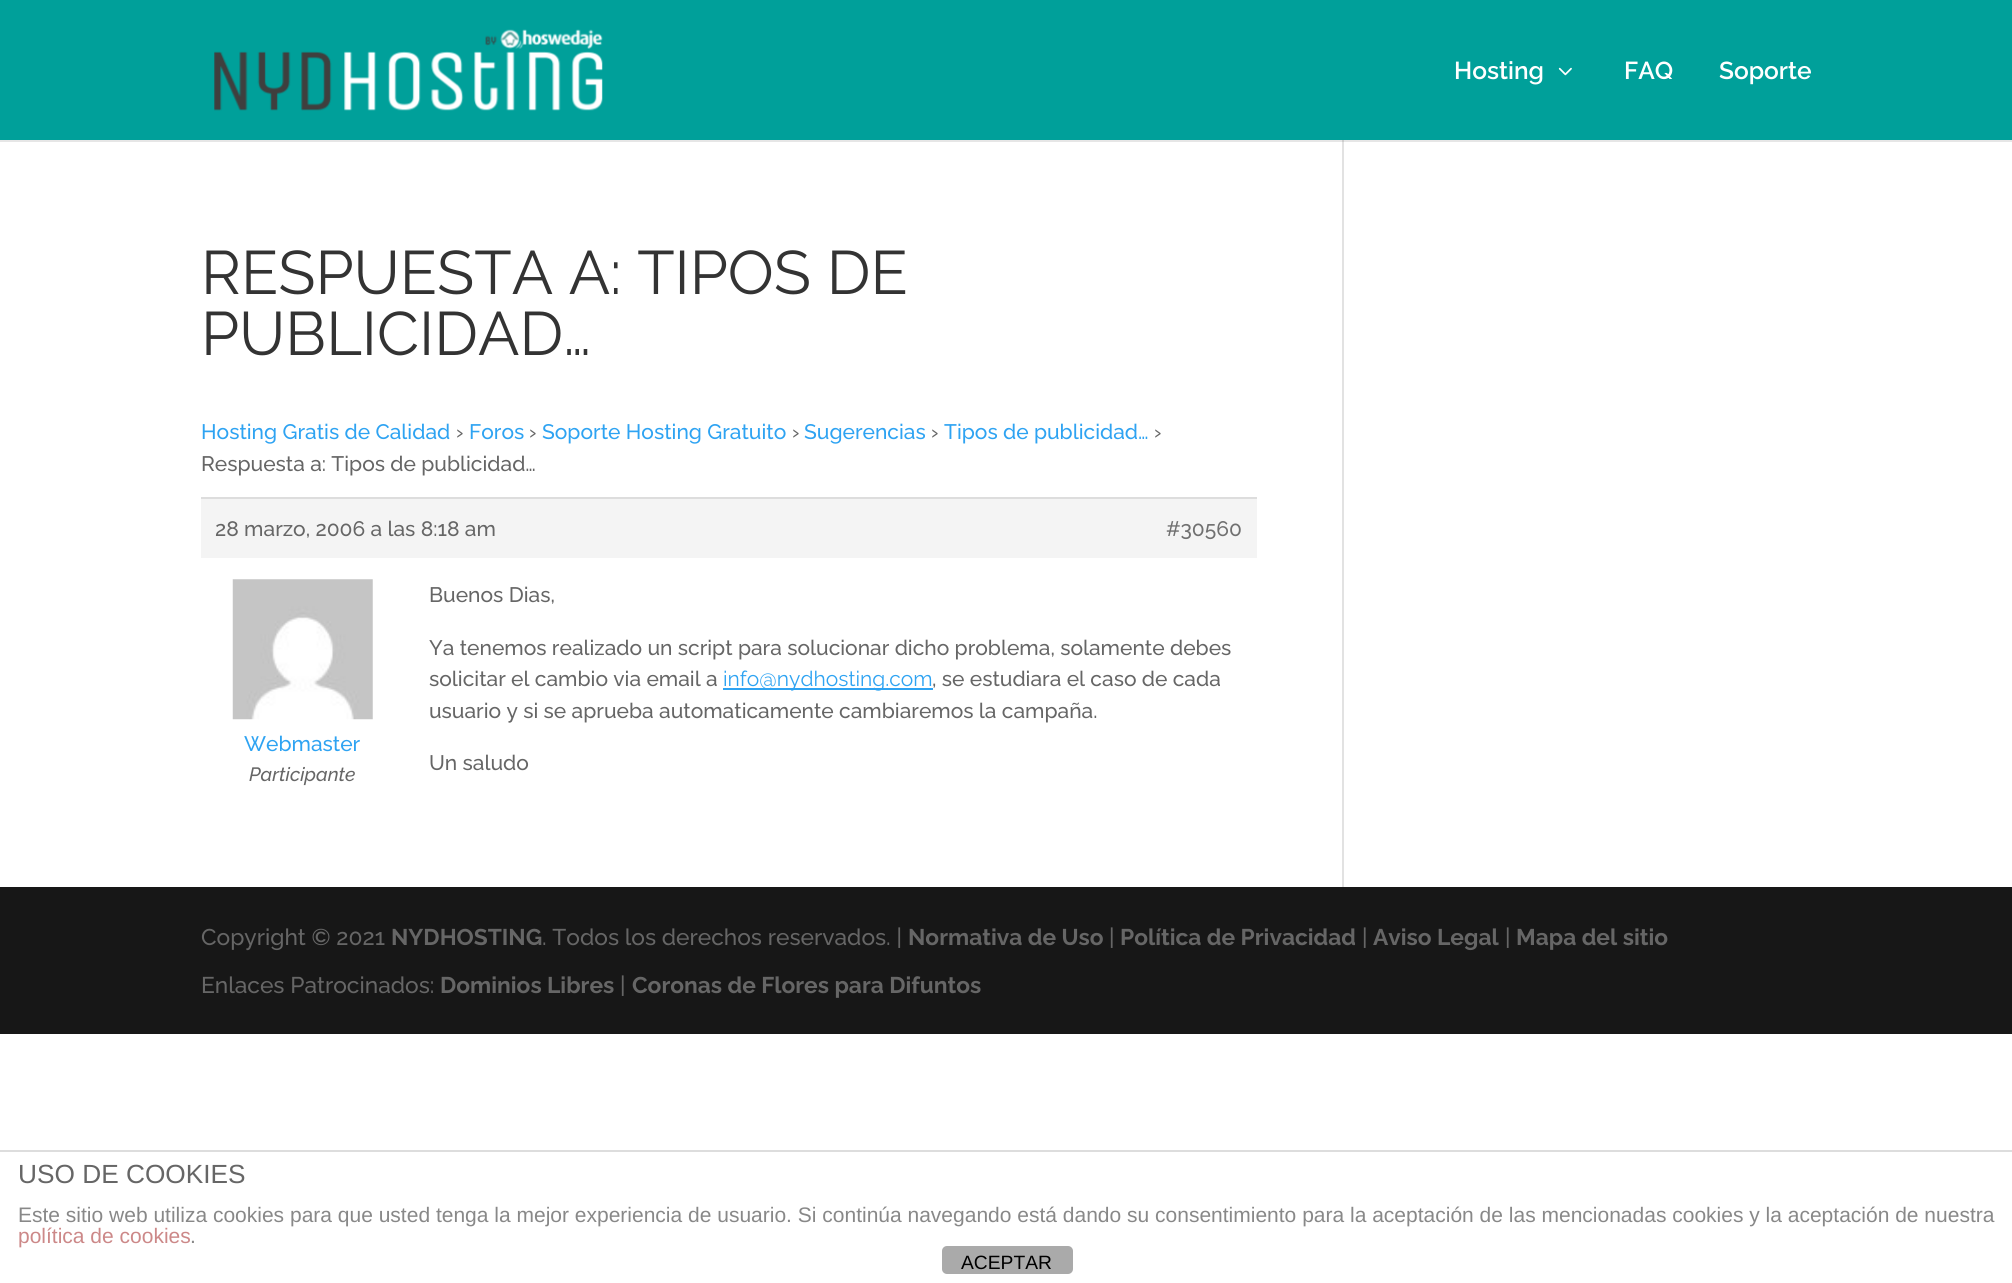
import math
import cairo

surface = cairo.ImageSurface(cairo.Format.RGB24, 2012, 1283)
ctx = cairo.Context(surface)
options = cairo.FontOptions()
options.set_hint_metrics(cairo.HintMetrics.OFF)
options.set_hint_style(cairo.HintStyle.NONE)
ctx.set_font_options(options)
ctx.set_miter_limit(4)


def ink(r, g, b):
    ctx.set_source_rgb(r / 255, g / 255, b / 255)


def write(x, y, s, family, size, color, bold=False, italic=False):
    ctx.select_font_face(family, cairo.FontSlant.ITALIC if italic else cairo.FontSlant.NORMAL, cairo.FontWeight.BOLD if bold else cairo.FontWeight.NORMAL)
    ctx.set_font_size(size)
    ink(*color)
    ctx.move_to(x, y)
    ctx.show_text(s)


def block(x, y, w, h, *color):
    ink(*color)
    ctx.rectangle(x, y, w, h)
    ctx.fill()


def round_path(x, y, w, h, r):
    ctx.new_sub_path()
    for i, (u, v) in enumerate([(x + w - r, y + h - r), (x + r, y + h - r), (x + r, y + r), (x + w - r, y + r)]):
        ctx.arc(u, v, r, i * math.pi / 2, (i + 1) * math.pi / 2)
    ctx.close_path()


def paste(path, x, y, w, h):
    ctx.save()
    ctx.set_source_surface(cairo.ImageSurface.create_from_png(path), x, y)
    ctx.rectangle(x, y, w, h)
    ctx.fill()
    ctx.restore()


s1 = dict(family="Raleway SemiBold", size=24.5, color=(255, 255, 255))
s2 = dict(family="Raleway", size=61.25, color=(51, 51, 51))
s3 = dict(family="Raleway Medium", size=21, color=(46, 163, 242))
s4 = dict(family="Raleway Medium", size=21, color=(102, 102, 102))
s5 = dict(family="Raleway Medium", size=21, color=(112, 112, 112))
s6 = dict(family="Raleway Medium", size=19.25, color=(102, 102, 102), italic=True)
s7 = dict(family="Raleway", size=21, color=(46, 163, 242))
s8 = dict(family="Raleway Medium", size=22.75, color=(102, 102, 102))
s9 = dict(family="Raleway", size=22.75, color=(102, 102, 102), bold=True)
s10 = dict(family="Liberation Sans", size=26.25, color=(102, 102, 102))
s11 = dict(family="Liberation Sans", size=21, color=(136, 136, 136))
s12 = dict(family="Liberation Sans", size=21, color=(204, 136, 136))
s13 = dict(family="Liberation Sans", size=19.25, color=(0, 0, 0))

ink(255, 255, 255)
ctx.paint()
block(1342, 140, 2, 747, 226, 226, 226)
ctx.set_source_rgba(0, 0, 0, 0.1)
ctx.new_path()
ctx.move_to(0, 140)
ctx.line_to(0, 142)
ctx.line_to(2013, 142)
ctx.line_to(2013, 2)
ctx.line_to(2012, 2)
ctx.line_to(2012, 140)
ctx.close_path()
ctx.fill()
block(0, 0, 2012, 140, 0, 160, 154)
paste("pic1.png", 214, 29, 389, 82)
write(1454, 79, "Hosting", **s1)
paste("pic2.png", 1558, 67, 14, 9)
write(1624, 79, "FAQ", **s1)
write(1719, 79, "Soporte", **s1)
write(201, 294, "RESPUESTA A: TIPOS DE", **s2)
write(201, 355, "PUBLICIDAD…", **s2)
write(201, 439, "Hosting Gratis de Calidad", **s3)
write(456, 439, "›", **s4)
write(469, 439, "Foros", **s3)
write(529, 439, "›", **s4)
write(542, 439, "Soporte Hosting Gratuito", **s3)
write(792, 439, "›", **s4)
write(804, 439, "Sugerencias", **s3)
write(931, 439, "›", **s4)
write(944, 439, "Tipos de publicidad…", **s3)
write(1154, 439, "›", **s4)
write(201, 471, "Respuesta a: Tipos de publicidad…", **s4)
block(201, 499, 1056, 59, 244, 244, 244)
block(201, 497, 1056, 2, 221, 221, 221)
write(215, 536, "28 marzo, 2006 a las 8:18 am", **s4)
write(1166, 536, "#30560", **s5)
paste("pic3.png", 232, 579, 141, 141)
write(244, 751, "Webmaster", **s3)
write(249, 781, "Participante", **s6)
write(429, 602, "Buenos Dias,", **s4)
write(429, 655, "Ya tenemos realizado un script para solucionar dicho problema, solamente debes", **s4)
write(429, 686, "solicitar el cambio via email a", **s4)
block(723, 688, 210, 2, 46, 163, 242)
write(723, 686, "info@nydhosting.com", **s7)
write(932, 686, ", se estudiara el caso de cada", **s4)
write(429, 718, "usuario y si se aprueba automaticamente cambiaremos la campaña.", **s4)
write(429, 770, "Un saludo", **s4)
block(0, 887, 2012, 147, 23, 23, 23)
write(201, 945, "Copyright © 2021", **s8)
write(391, 945, "NYDHOSTING", **s9)
write(542, 945, ". Todos los derechos reservados. |", **s8)
write(908, 945, "Normativa de Uso", **s9)
write(1109, 945, "|", **s8)
write(1120, 945, "Política de Privacidad", **s9)
write(1362, 945, "|", **s8)
write(1373, 945, "Aviso Legal", **s9)
write(1505, 945, "|", **s8)
write(1516, 945, "Mapa del sitio", **s9)
write(201, 993, "Enlaces Patrocinados:", **s8)
write(440, 993, "Dominios Libres", **s9)
write(620, 993, "|", **s8)
write(632, 993, "Coronas de Flores para Difuntos", **s9)
block(0, 1150, 2012, 2, 221, 221, 221)
write(18, 1183, "USO DE COOKIES", **s10)
write(18, 1222, "Este sitio web utiliza cookies para que usted tenga la mejor experiencia de usuario. Si continúa navegando está dando su consentimiento para la aceptación de las mencionadas cookies y la aceptación de nuestra", **s11)
write(18, 1243, "política de cookies", **s12)
write(190, 1243, ".", **s11)
ink(170, 170, 170)
round_path(942, 1246, 131, 28, 5)
ctx.fill()
write(961, 1269, "ACEPTAR", **s13)
surface.write_to_png("screenshot.png")
